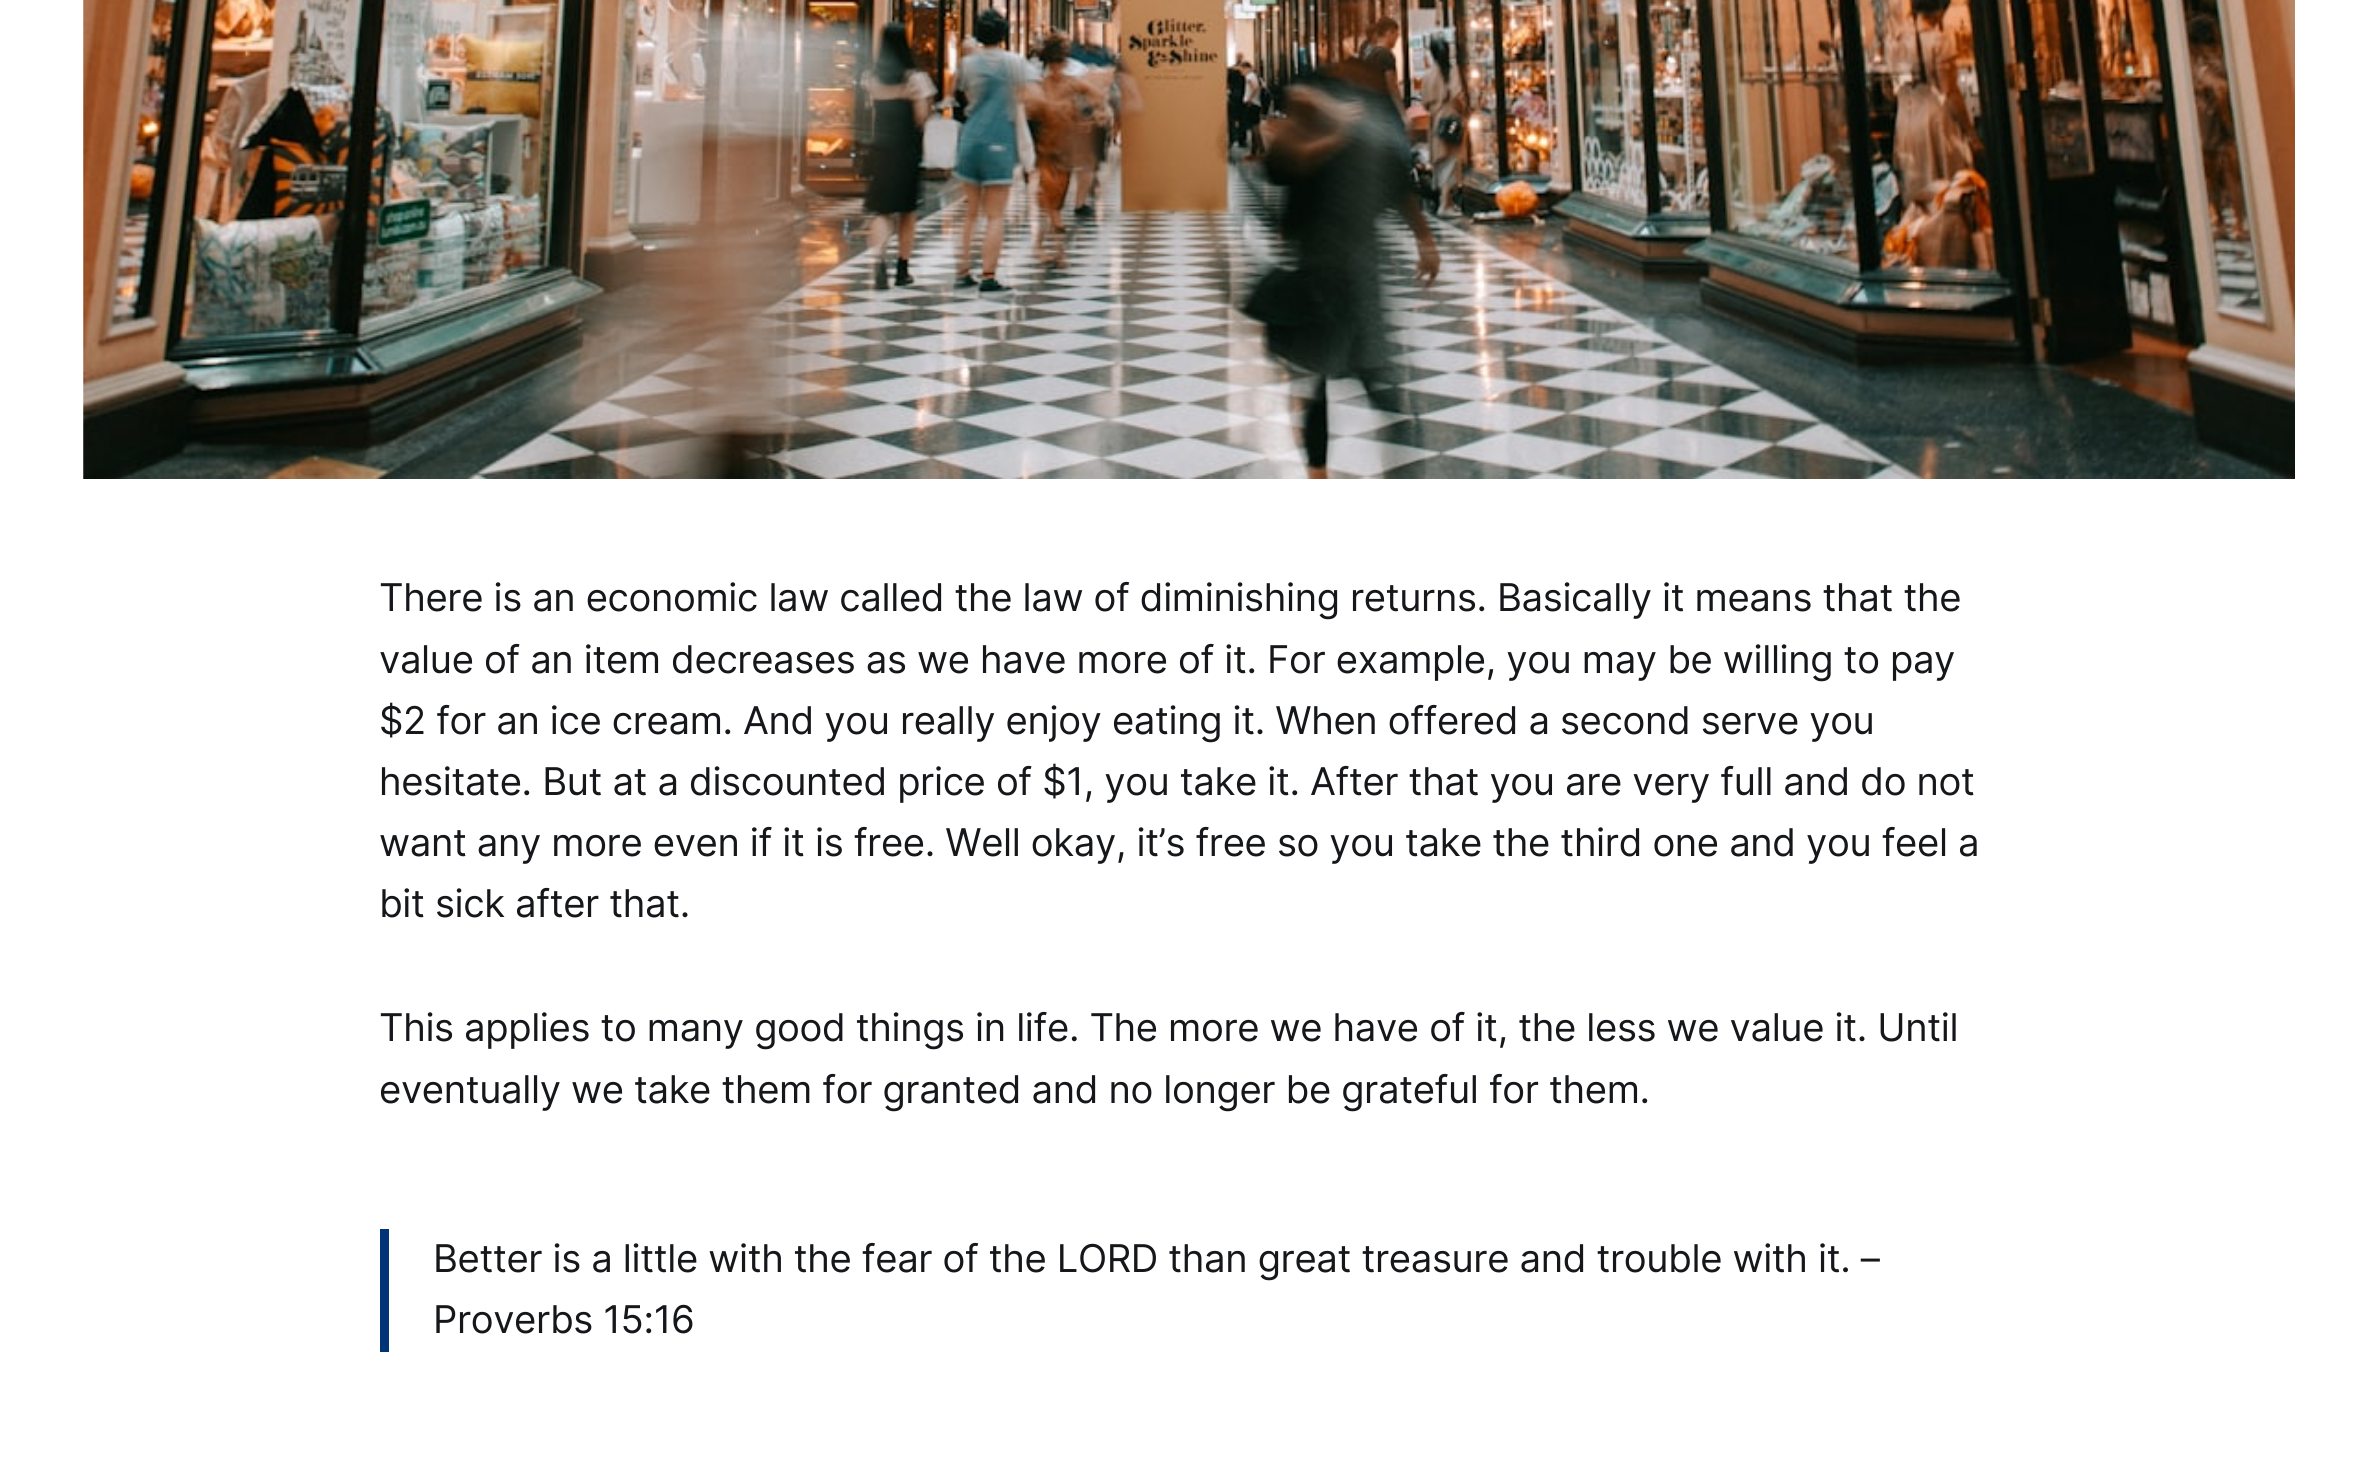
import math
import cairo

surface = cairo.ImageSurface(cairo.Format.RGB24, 2377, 1471)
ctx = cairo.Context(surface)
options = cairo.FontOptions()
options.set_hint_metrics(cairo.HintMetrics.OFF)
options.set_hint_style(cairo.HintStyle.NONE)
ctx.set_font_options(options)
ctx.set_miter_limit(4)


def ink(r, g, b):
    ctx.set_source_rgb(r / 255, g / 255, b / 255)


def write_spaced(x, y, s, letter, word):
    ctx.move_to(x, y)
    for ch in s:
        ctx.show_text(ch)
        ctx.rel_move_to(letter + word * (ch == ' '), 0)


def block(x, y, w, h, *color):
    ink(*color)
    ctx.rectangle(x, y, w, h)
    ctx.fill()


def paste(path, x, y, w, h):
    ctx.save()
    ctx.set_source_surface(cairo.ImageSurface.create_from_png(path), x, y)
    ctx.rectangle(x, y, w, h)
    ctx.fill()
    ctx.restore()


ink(255, 255, 255)
ctx.paint()
paste("pic1.png", 83, 0, 2212, 479)
ctx.select_font_face("Inter")
ctx.set_font_size(38.25)
ink(21, 23, 26)
write_spaced(379, 611, "There is an economic law called the law of diminishing returns. Basically it means that the", -0.38, 0)
write_spaced(379, 673, "value of an item decreases as we have more of it. For example, you may be willing to pay", -0.38, 0)
write_spaced(379, 734, "$2 for an ice cream. And you really enjoy eating it. When offered a second serve you", -0.38, 0)
write_spaced(379, 795, "hesitate. But at a discounted price of $1, you take it. After that you are very full and do not", -0.38, 0)
write_spaced(379, 856, "want any more even if it is free. Well okay, it’s free so you take the third one and you feel a", -0.38, 0)
write_spaced(379, 917, "bit sick after that.", -0.38, 0)
write_spaced(379, 1041, "This applies to many good things in life. The more we have of it, the less we value it. Until", -0.38, 0)
write_spaced(379, 1103, "eventually we take them for granted and no longer be grateful for them.", -0.38, 0)
block(380, 1229, 9, 123, 0, 51, 119)
ink(21, 23, 26)
write_spaced(433, 1272, "Better is a little with the fear of the LORD than great treasure and trouble with it. –", -0.38, 0)
write_spaced(433, 1333, "Proverbs 15:16", -0.38, 0)
surface.write_to_png("screenshot.png")
